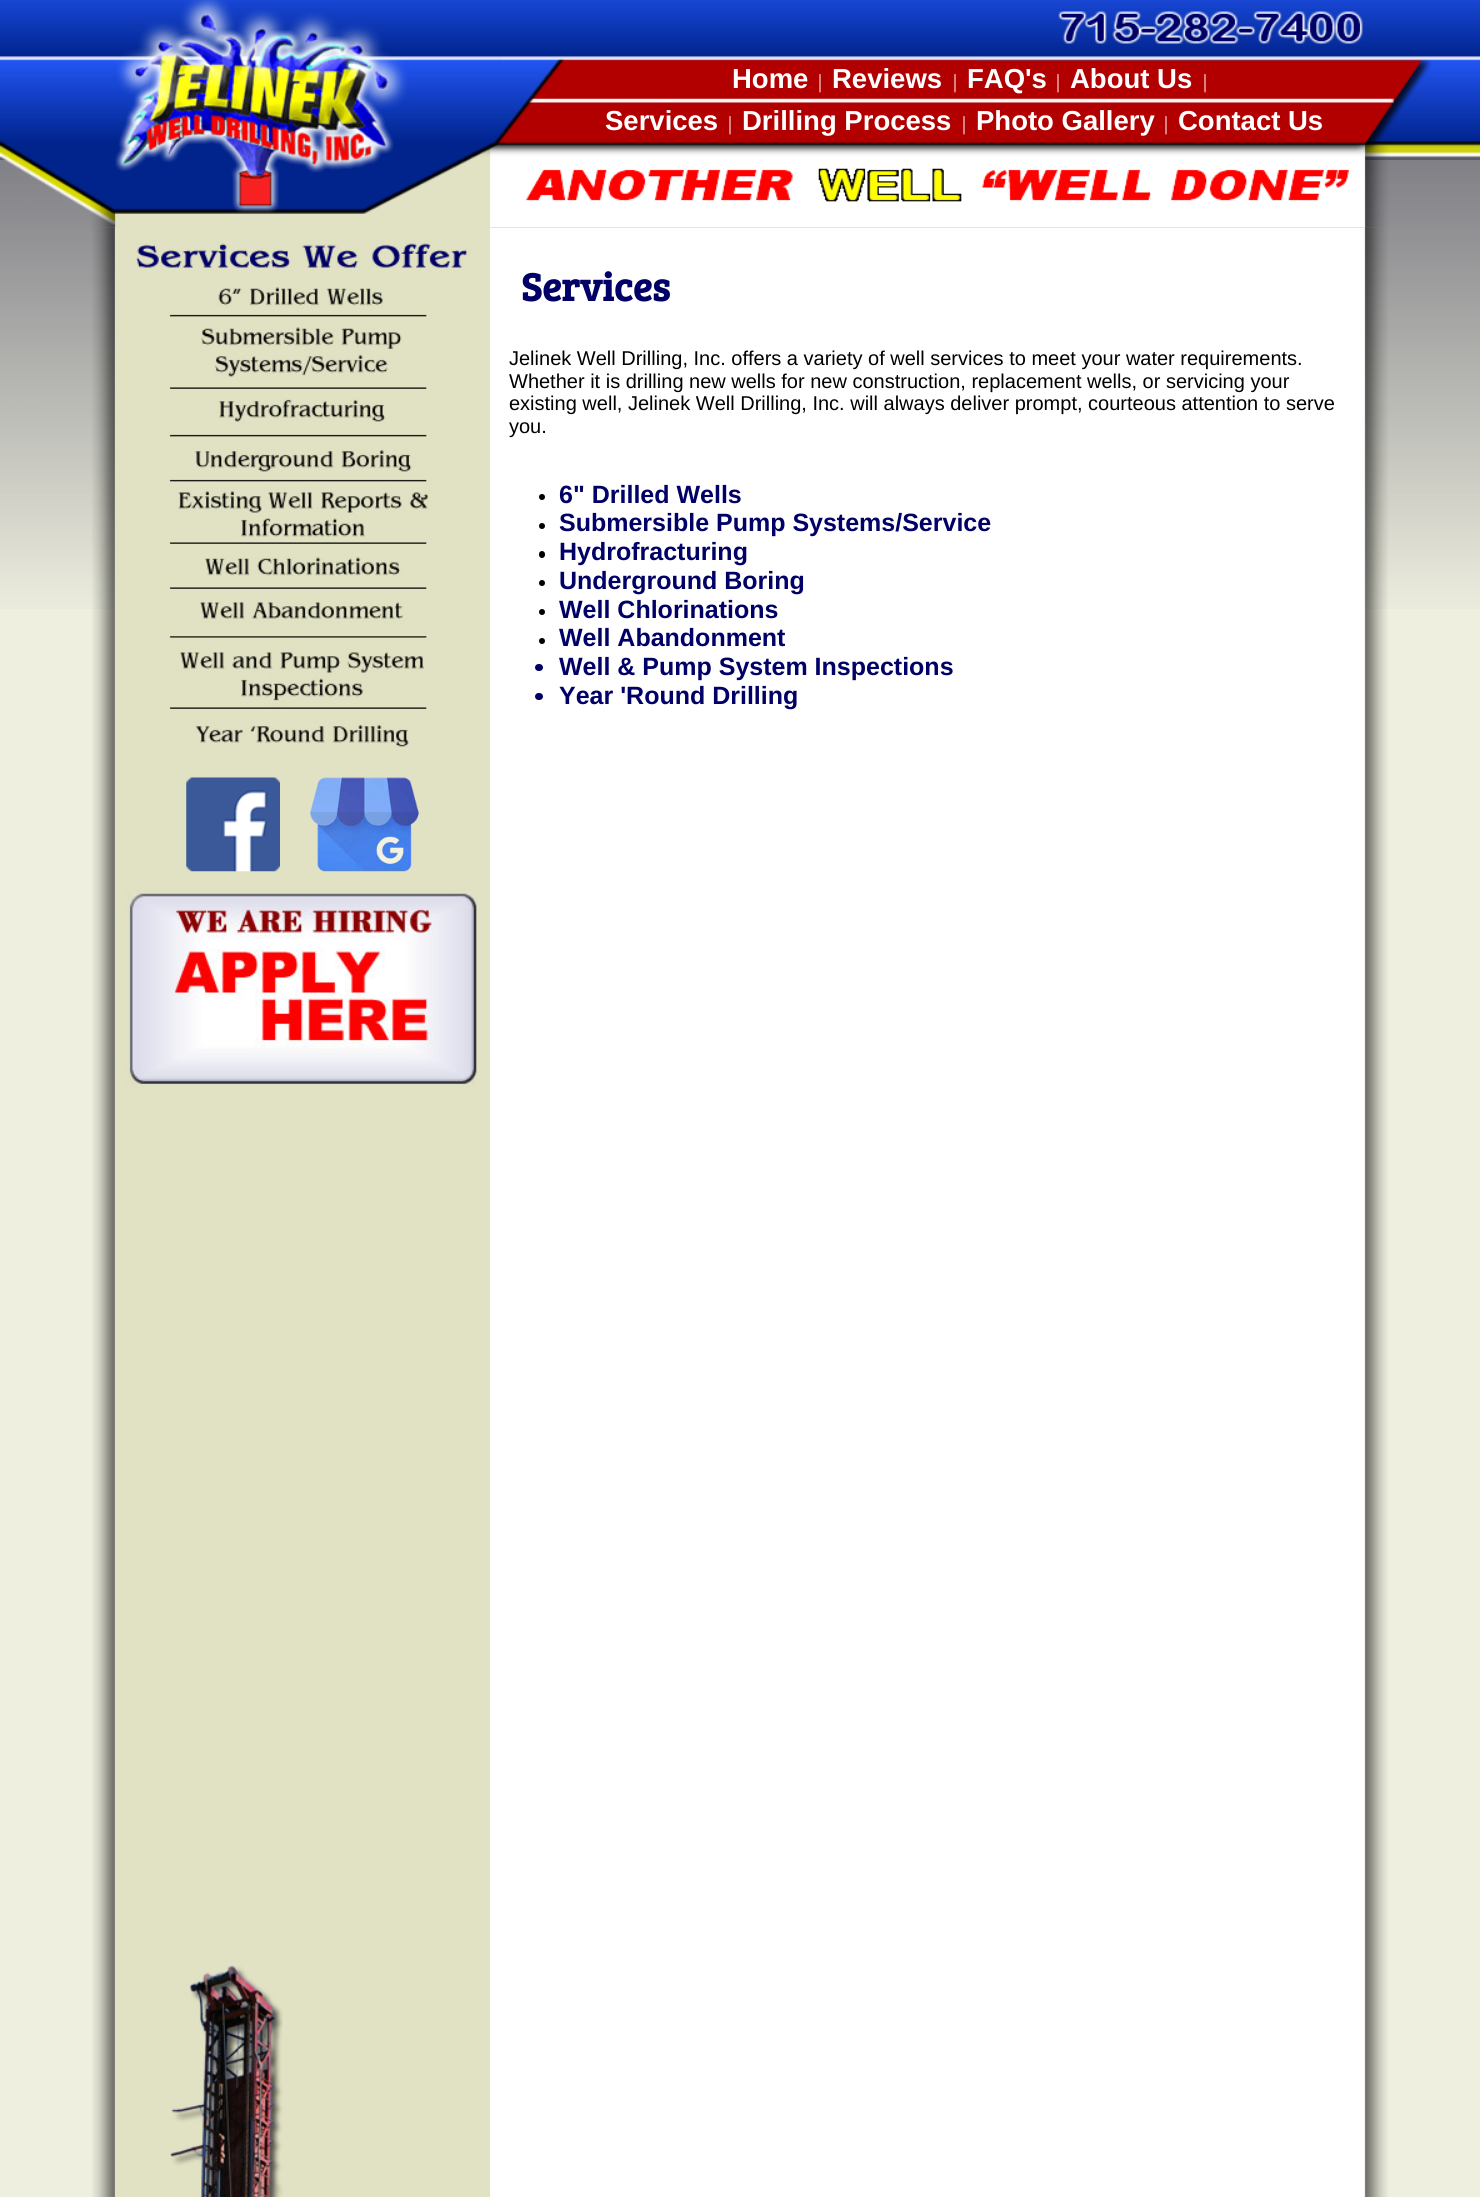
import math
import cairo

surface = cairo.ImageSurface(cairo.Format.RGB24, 1480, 2197)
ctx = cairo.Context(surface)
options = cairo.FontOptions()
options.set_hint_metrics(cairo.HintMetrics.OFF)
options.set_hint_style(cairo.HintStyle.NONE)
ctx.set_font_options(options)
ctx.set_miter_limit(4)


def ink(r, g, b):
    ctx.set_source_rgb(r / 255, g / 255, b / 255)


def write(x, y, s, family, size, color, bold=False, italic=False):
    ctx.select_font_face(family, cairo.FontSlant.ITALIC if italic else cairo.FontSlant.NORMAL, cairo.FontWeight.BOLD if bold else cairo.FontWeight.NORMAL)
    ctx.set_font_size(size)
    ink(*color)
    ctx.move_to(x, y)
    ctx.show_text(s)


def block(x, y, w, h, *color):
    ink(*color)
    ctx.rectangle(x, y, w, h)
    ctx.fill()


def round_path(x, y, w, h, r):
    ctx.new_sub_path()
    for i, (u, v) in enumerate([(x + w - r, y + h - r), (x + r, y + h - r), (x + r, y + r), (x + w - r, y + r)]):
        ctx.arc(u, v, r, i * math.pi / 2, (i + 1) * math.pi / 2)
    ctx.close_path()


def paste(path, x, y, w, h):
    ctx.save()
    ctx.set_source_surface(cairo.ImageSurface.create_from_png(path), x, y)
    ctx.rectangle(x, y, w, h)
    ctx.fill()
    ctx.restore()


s1 = dict(family="Liberation Sans", size=27.5, color=(255, 255, 255), bold=True)
s2 = dict(family="Liberation Serif", size=20, color=(255, 255, 255))
s3 = dict(family="Bree Serif", size=40, color=(0, 0, 102), bold=True)
s4 = dict(family="Liberation Sans", size=20, color=(0, 0, 0))
s5 = dict(family="Liberation Sans", size=25, color=(0, 0, 102), bold=True)

ink(239, 239, 224)
ctx.paint()
paste("pic1.png", 0, 160, 1480, 449)
paste("pic2.png", 0, 154, 1480, 6)
paste("pic3.png", 0, 0, 1480, 228)
write(732, 88, "Home", **s1)
write(818, 88, "|", **s2)
write(832, 88, "Reviews", **s1)
write(953, 88, "|", **s2)
write(967, 88, "FAQ's", **s1)
write(1056, 88, "|", **s2)
write(1070, 88, "About Us", **s1)
write(1203, 88, "|", **s2)
write(605, 130, "Services", **s1)
write(728, 130, "|", **s2)
write(742, 130, "Drilling Process", **s1)
write(962, 130, "|", **s2)
write(976, 130, "Photo Gallery", **s1)
write(1164, 130, "|", **s2)
write(1178, 130, "Contact Us", **s1)
paste("pic4.png", 92, 227, 1296, 1970)
block(115, 747, 375, 1450, 225, 225, 196)
paste("pic5.png", 115, 227, 375, 520)
paste("pic6.png", 186, 777, 94, 95)
paste("pic7.png", 310, 777, 109, 95)
paste("pic8.png", 125, 889, 356, 200)
paste("pic9.png", 170, 1965, 113, 232)
write(521, 301, "Services", **s3)
write(509, 365, "Jelinek Well Drilling, Inc. offers a variety of well services to meet your water requirements.", **s4)
write(509, 388, "Whether it is drilling new wells for new construction, replacement wells, or servicing your", **s4)
write(509, 410, "existing well, Jelinek Well Drilling, Inc. will always deliver prompt, courteous attention to serve", **s4)
write(509, 433, "you.", **s4)
ctx.new_path()
ctx.arc(542, 497, 3, 0, 2 * math.pi)
ctx.fill()
write(559, 503, "6\" Drilled Wells", **s5)
ink(0, 0, 0)
ctx.new_path()
ctx.arc(542, 526, 3, 0, 2 * math.pi)
ctx.fill()
write(559, 531, "Submersible Pump Systems/Service", **s5)
ink(0, 0, 0)
round_path(539, 551, 6, 7, 3)
ctx.fill()
write(559, 560, "Hydrofracturing", **s5)
ink(0, 0, 0)
ctx.new_path()
ctx.arc(542, 583, 3, 0, 2 * math.pi)
ctx.fill()
write(559, 589, "Underground Boring", **s5)
ink(0, 0, 0)
ctx.new_path()
ctx.arc(542, 612, 3, 0, 2 * math.pi)
ctx.fill()
write(559, 618, "Well Chlorinations", **s5)
ink(0, 0, 0)
ctx.new_path()
ctx.arc(542, 641, 3, 0, 2 * math.pi)
ctx.fill()
write(559, 646, "Well Abandonment", **s5)
round_path(535, 664, 8, 7, 3.5)
ctx.fill()
write(559, 675, "Well & Pump System Inspections", **s5)
round_path(535, 693, 8, 7, 3.5)
ctx.fill()
write(559, 704, "Year 'Round Drilling", **s5)
surface.write_to_png("screenshot.png")
